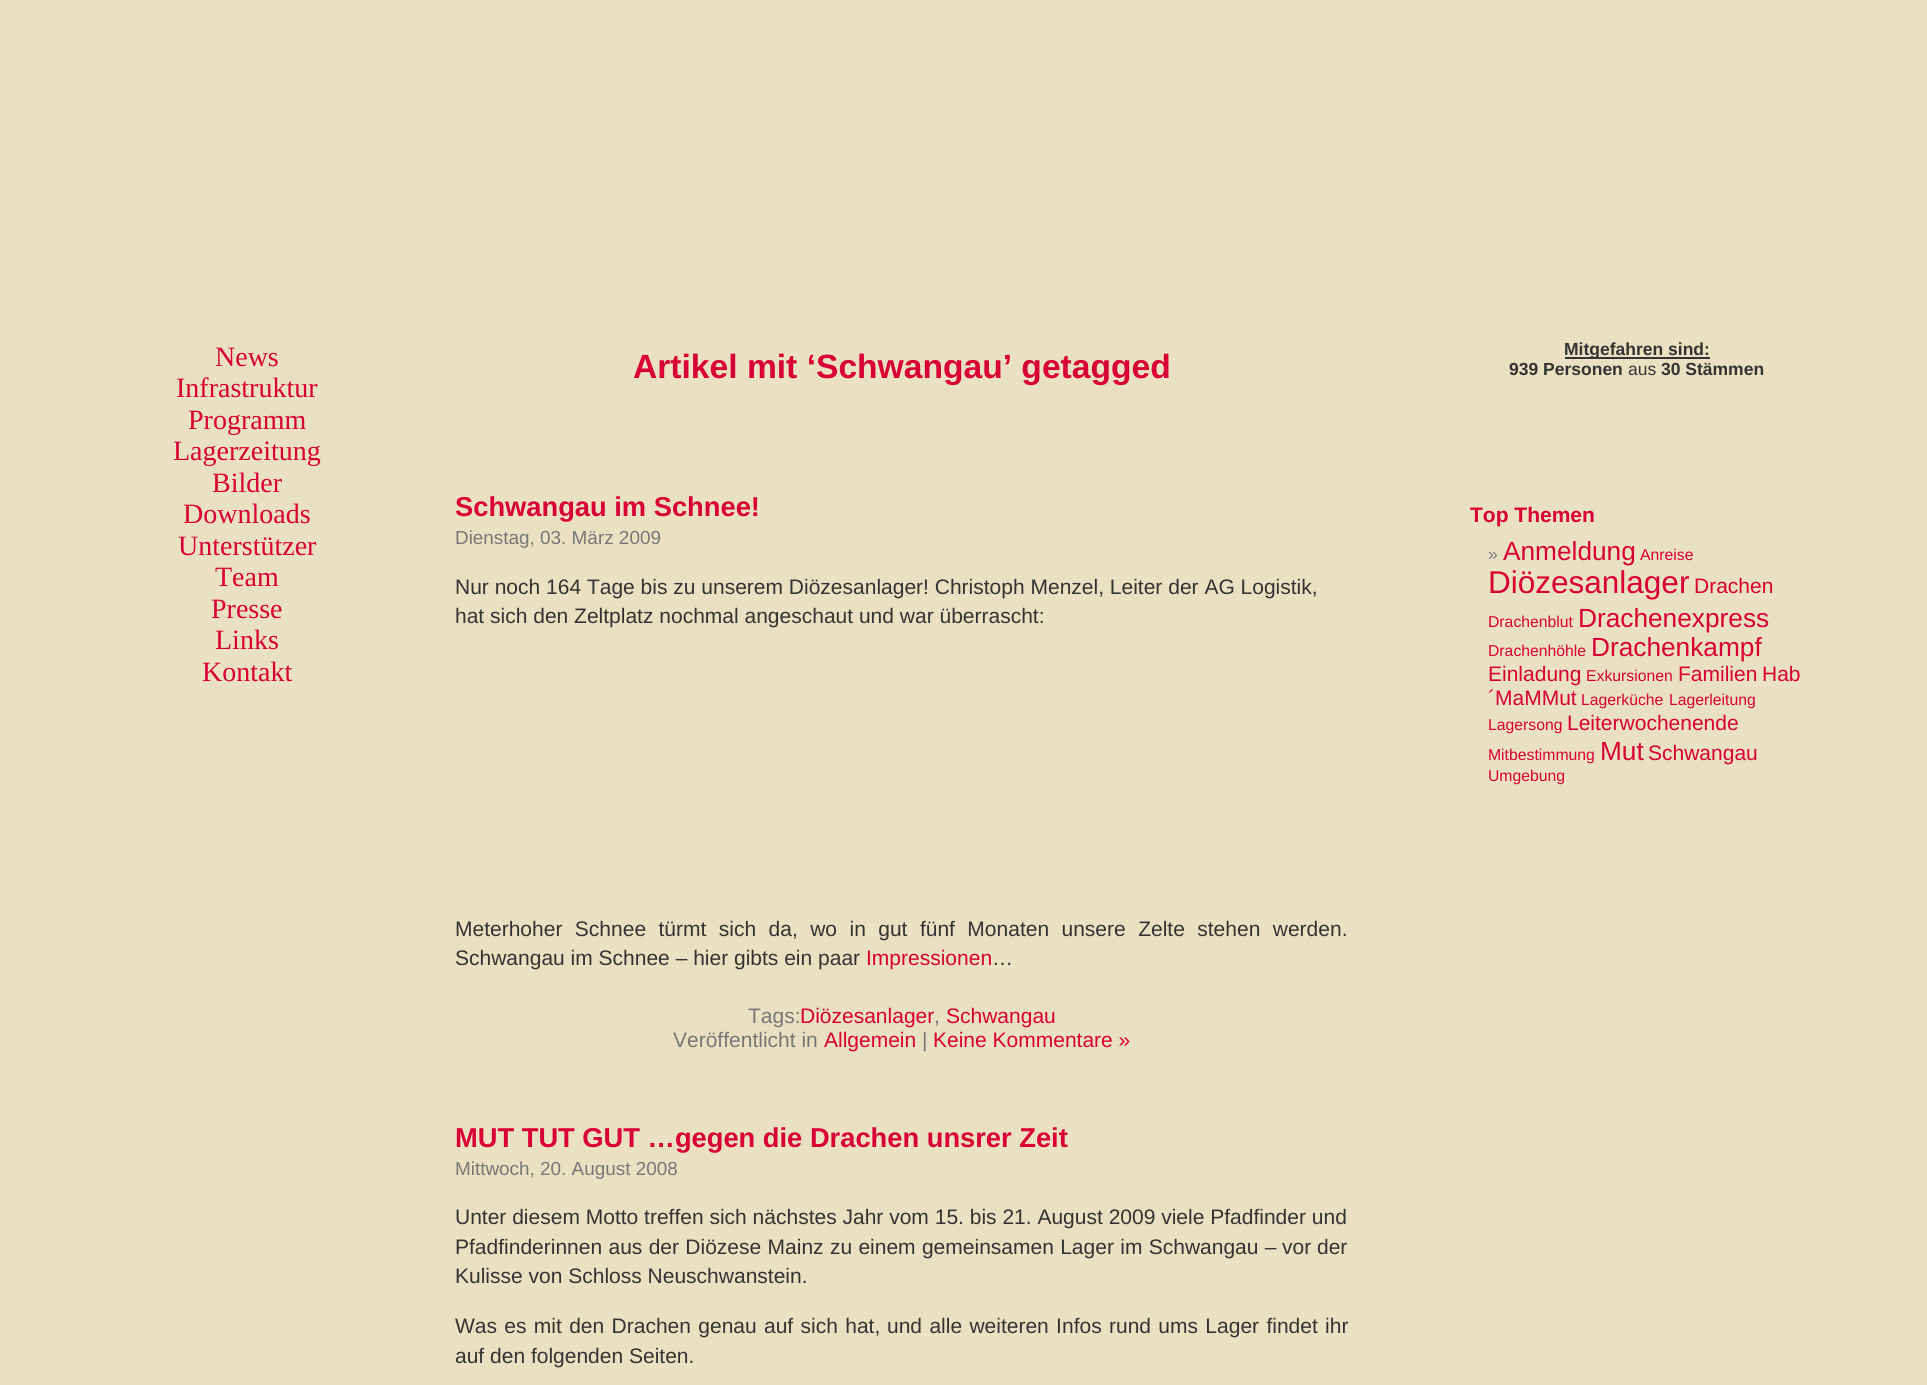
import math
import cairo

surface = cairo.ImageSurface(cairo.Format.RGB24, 1927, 1385)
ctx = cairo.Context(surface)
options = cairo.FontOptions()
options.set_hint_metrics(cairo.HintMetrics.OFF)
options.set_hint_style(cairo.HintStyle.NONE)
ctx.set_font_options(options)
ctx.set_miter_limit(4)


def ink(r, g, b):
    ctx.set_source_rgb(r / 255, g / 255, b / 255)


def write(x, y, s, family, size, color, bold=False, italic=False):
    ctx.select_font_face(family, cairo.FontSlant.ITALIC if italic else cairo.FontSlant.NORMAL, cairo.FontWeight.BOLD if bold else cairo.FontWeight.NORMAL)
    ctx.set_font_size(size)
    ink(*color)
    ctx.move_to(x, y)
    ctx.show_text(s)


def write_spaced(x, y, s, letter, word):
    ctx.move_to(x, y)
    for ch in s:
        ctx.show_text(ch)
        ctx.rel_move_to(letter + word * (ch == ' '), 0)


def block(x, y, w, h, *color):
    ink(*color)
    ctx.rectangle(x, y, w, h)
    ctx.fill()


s1 = dict(family="Liberation Serif", size=28, color=(217, 0, 52))
s2 = dict(family="Liberation Sans", size=33.6, color=(217, 0, 52), bold=True)
s3 = dict(family="Liberation Sans", size=27.3, color=(217, 0, 52), bold=True)
s4 = dict(family="Liberation Sans", size=18.9, color=(119, 119, 119))
s5 = dict(family="Liberation Sans", size=21, color=(51, 51, 51))
s6 = dict(family="Liberation Sans", size=21, color=(217, 0, 52))
s7 = dict(family="Liberation Sans", size=21, color=(119, 119, 119))
s8 = dict(family="Liberation Sans", size=17.5, color=(51, 51, 51), bold=True)
s9 = dict(family="Liberation Sans", size=17.5, color=(51, 51, 51))
s10 = dict(family="Liberation Sans", size=21, color=(217, 0, 52), bold=True)
s11 = dict(family="Liberation Sans", size=17.5, color=(119, 119, 119))
s12 = dict(family="Liberation Sans", size=26.25, color=(217, 0, 52))
s13 = dict(family="Liberation Sans", size=15.75, color=(217, 0, 52))
s14 = dict(family="Liberation Sans", size=31.5, color=(217, 0, 52))

ink(234, 225, 194)
ctx.paint()
write(215, 366, "News", **s1)
write(176, 397, "Infrastruktur", **s1)
write(188, 429, "Programm", **s1)
write(173, 460, "Lagerzeitung", **s1)
write(212, 492, "Bilder", **s1)
write(183, 523, "Downloads", **s1)
write(178, 555, "Unterstützer", **s1)
write(215, 586, "Team", **s1)
write(211, 618, "Presse", **s1)
write(215, 649, "Links", **s1)
write(202, 681, "Kontakt", **s1)
write(633, 378, "Artikel mit ‘Schwangau’ getagged", **s2)
write(455, 516, "Schwangau im Schnee!", **s3)
write(455, 544, "Dienstag, 03. März 2009", **s4)
write(455, 594, "Nur noch 164 Tage bis zu unserem Diözesanlager! Christoph Menzel, Leiter der AG Logistik,", **s5)
write(455, 623, "hat sich den Zeltplatz nochmal angeschaut und war überrascht:", **s5)
write_spaced(455, 936, "Meterhoher Schnee türmt sich da, wo in gut fünf Monaten unsere Zelte stehen werden.", 0, 6.6)
write(455, 965, "Schwangau im Schnee – hier gibts ein paar", **s5)
write(866, 965, "Impressionen", **s6)
write(992, 965, "…", **s5)
write(748, 1023, "Tags:", **s7)
write(800, 1023, "Diözesanlager", **s6)
write(934, 1023, ",", **s7)
write(946, 1023, "Schwangau", **s6)
write(673, 1047, "Veröffentlicht in", **s7)
write(824, 1047, "Allgemein", **s6)
write(922, 1047, "|", **s7)
write(933, 1047, "Keine Kommentare »", **s6)
write(455, 1147, "MUT TUT GUT …gegen die Drachen unsrer Zeit", **s3)
write(455, 1175, "Mittwoch, 20. August 2008", **s4)
write(455, 1224, "Unter diesem Motto treffen sich nächstes Jahr vom 15. bis 21. August 2009 viele Pfadfinder und", **s5)
write_spaced(455, 1254, "Pfadfinderinnen aus der Diözese Mainz zu einem gemeinsamen Lager im Schwangau –", 0, 0.5)
write(1282, 1254, "vor der", **s5)
write(455, 1283, "Kulisse von Schloss Neuschwanstein.", **s5)
write_spaced(455, 1333, "Was es mit den Drachen genau auf sich hat,", 0, 1.5)
write_spaced(887, 1333, "und alle weiteren Infos rund ums Lager findet ihr", 0, 1.5)
write(455, 1363, "auf den folgenden Seiten.", **s5)
block(1565, 357, 145, 2, 51, 51, 51)
write(1564, 355, "Mitgefahren sind:", **s8)
write(1509, 375, "939 Personen", **s8)
write(1628, 375, "aus", **s9)
write(1661, 375, "30 Stämmen", **s8)
write(1470, 522, "Top Themen", **s10)
write(1488, 560, "»", **s11)
write(1503, 560, "Anmeldung", **s12)
write(1640, 560, "Anreise", **s13)
write(1488, 593, "Diözesanlager", **s14)
write(1694, 593, "Drachen", **s6)
write(1488, 627, "Drachenblut", **s13)
write(1578, 627, "Drachenexpress", **s12)
write(1488, 656, "Drachenhöhle", **s13)
write(1591, 656, "Drachenkampf", **s12)
write(1488, 681, "Einladung", **s6)
write(1586, 681, "Exkursionen", **s13)
write(1678, 681, "Familien", **s6)
write(1762, 681, "Hab", **s6)
write(1488, 705, "´MaMMut", **s6)
write(1581, 705, "Lagerküche", **s13)
write(1669, 705, "Lagerleitung", **s13)
write(1488, 730, "Lagersong", **s13)
write(1567, 730, "Leiterwochenende", **s6)
write(1488, 760, "Mitbestimmung", **s13)
write(1600, 760, "Mut", **s12)
write(1648, 760, "Schwangau", **s6)
write(1488, 781, "Umgebung", **s13)
surface.write_to_png("screenshot.png")
